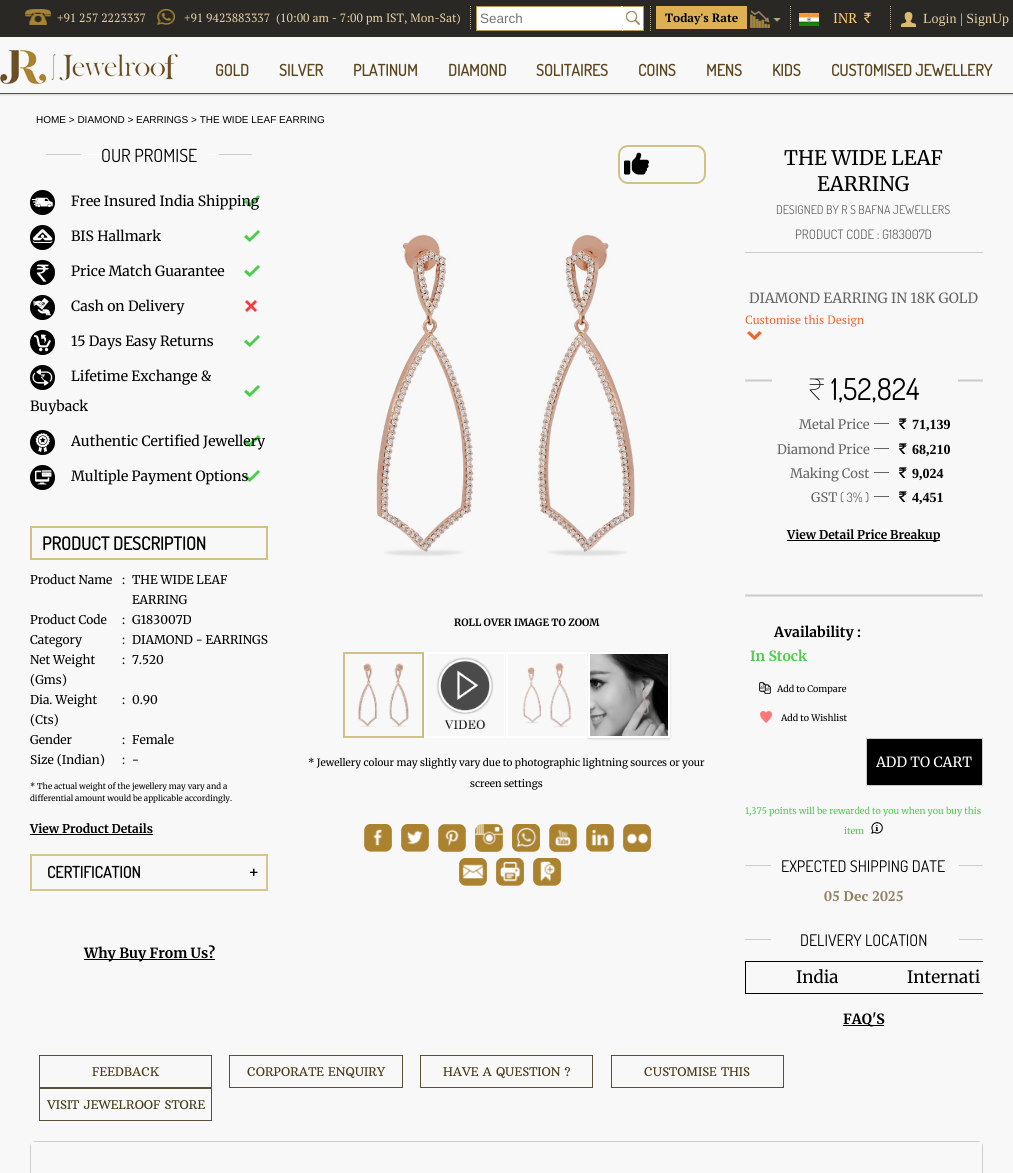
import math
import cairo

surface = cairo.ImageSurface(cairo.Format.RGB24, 1013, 1173)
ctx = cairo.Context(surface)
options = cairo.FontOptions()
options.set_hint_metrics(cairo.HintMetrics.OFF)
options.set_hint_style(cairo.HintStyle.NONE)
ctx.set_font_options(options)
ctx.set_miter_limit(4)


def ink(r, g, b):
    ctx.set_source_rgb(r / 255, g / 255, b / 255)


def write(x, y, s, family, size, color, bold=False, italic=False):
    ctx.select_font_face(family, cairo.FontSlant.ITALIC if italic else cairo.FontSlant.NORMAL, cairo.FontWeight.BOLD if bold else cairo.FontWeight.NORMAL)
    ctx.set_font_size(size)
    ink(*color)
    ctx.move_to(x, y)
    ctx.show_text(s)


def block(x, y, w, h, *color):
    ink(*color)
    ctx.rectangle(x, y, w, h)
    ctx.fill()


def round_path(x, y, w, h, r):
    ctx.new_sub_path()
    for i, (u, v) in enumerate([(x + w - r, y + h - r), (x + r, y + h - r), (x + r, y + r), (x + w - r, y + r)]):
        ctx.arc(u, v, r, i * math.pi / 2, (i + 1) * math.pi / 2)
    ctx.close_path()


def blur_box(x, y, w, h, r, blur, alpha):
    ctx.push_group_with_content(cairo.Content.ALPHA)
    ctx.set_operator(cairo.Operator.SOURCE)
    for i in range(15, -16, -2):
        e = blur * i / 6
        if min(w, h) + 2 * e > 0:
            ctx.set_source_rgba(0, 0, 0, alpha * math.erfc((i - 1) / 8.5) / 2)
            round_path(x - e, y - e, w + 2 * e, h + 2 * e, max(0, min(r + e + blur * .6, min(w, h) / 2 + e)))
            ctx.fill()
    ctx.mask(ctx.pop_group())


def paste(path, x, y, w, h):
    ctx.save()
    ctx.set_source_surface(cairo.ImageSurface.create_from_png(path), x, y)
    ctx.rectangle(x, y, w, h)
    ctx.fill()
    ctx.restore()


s1 = dict(family="PT Serif", size=12, color=(230, 209, 166))
s2 = dict(family="Liberation Sans", size=13.5, color=(117, 117, 117))
s3 = dict(family="PT Serif", size=12, color=(0, 0, 0), bold=True)
s4 = dict(family="PT Serif", size=14, color=(255, 207, 110))
s5 = dict(family="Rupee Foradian", size=14, color=(255, 207, 110))
s6 = dict(family="Liberation Serif", size=14, color=(230, 209, 166))
s7 = dict(family="Dosis", size=16, color=(91, 70, 30), bold=True)
s8 = dict(family="Liberation Sans", size=10, color=(0, 0, 0))
s9 = dict(family="Dosis", size=18, color=(0, 0, 0))
s10 = dict(family="Merriweather", size=14, color=(0, 0, 0))
s11 = dict(family="Dosis", size=18, color=(0, 0, 0), bold=True)
s12 = dict(family="Merriweather", size=12, color=(0, 0, 0))
s13 = dict(family="Merriweather", size=8, color=(0, 0, 0))
s14 = dict(family="Merriweather", size=12, color=(0, 0, 0), bold=True)
s15 = dict(family="Dosis", size=16, color=(0, 0, 0), bold=True)
s16 = dict(family="Merriweather", size=14, color=(0, 0, 0), bold=True)
s17 = dict(family="Merriweather", size=10, color=(0, 0, 0), bold=True)
s18 = dict(family="Merriweather", size=10, color=(0, 0, 0))
s19 = dict(family="Merriweather", size=20, color=(0, 0, 0))
s20 = dict(family="Dosis", size=12, color=(102, 102, 102))
s21 = dict(family="Dosis", size=13, color=(102, 102, 102))
s22 = dict(family="Merriweather", size=14, color=(102, 102, 102))
s23 = dict(family="PT Serif", size=12, color=(237, 100, 44))
s24 = dict(family="Noto Sans Thin", size=30, color=(0, 0, 0))
s25 = dict(family="Dosis", size=30, color=(0, 0, 0))
s26 = dict(family="Merriweather", size=13, color=(102, 102, 102))
s27 = dict(family="Rupee Foradian", size=14, color=(0, 0, 0), bold=True)
s28 = dict(family="Liberation Serif", size=14, color=(0, 0, 0), bold=True)
s29 = dict(family="Merriweather", size=14, color=(80, 205, 80), bold=True)
s30 = dict(family="Merriweather", size=9, color=(0, 0, 0))
s31 = dict(family="Merriweather", size=14, color=(255, 255, 255))
s32 = dict(family="Merriweather", size=9, color=(80, 205, 80))
s33 = dict(family="Dosis", size=16, color=(0, 0, 0))
s34 = dict(family="PT Serif", size=14, color=(145, 129, 98), bold=True)
s35 = dict(family="Merriweather", size=17, color=(0, 0, 0))
s36 = dict(family="Arbutus Slab", size=12, color=(72, 57, 25))

ink(248, 248, 248)
ctx.paint()
block(0, 0, 1013, 37, 42, 40, 36)
ctx.new_path()
ctx.move_to(470.5, 6)
ctx.line_to(470.5, 29)
ink(183, 168, 136)
ctx.set_line_width(1)
ctx.set_dash([1, 1])
ctx.stroke()
paste("pic1.png", 25, 9, 26, 16)
write(57, 22, "+91 257 2223337", **s1)
paste("pic2.png", 157, 9, 18, 16)
write(184, 22, "+91 9423883337  (10:00 am - 7:00 pm IST, Mon-Sat)", **s1)
ctx.new_path()
ctx.move_to(650.5, 6)
ctx.line_to(650.5, 31)
ink(183, 168, 136)
ctx.stroke()
block(477, 7, 144, 23, 255, 255, 255)
block(476, 6, 168, 1, 188, 150, 74)
block(621, 6, 1, 25, 255, 255, 255)
block(476, 30, 146, 1, 188, 150, 74)
block(476, 6, 1, 25, 188, 150, 74)
write(480, 23, "Search", **s2)
block(623, 7, 20, 23, 255, 255, 255)
block(643, 6, 1, 25, 188, 150, 74)
block(622, 30, 22, 1, 188, 150, 74)
block(622, 6, 1, 25, 255, 255, 255)
paste("pic3.png", 626, 11, 14, 14)
ctx.new_path()
ctx.move_to(790.5, 6)
ctx.line_to(790.5, 29)
ink(183, 168, 136)
ctx.stroke()
block(656, 6, 91, 23, 220, 176, 83)
write(665, 22, "Today's Rate", **s3)
paste("pic4.png", 750, 10, 20, 18)
paste("pic5.png", 773, 18, 8, 4)
ctx.new_path()
ctx.move_to(890.5, 6)
ctx.line_to(890.5, 29)
ink(183, 168, 136)
ctx.stroke()
paste("pic6.png", 799, 13, 20, 13)
write(833, 23, "INR", **s4)
write(864, 23, "`", **s5)
paste("pic7.png", 901, 12, 15, 15)
write(923, 23, "Login | SignUp", **s6)
paste("pic8.png", 0, 50, 178, 34)
write(215, 76, "GOLD", **s7)
write(279, 76, "SILVER", **s7)
write(353, 76, "PLATINUM", **s7)
write(448, 76, "DIAMOND", **s7)
write(536, 76, "SOLITAIRES", **s7)
write(638, 76, "COINS", **s7)
write(706, 76, "MENS", **s7)
write(772, 76, "KIDS", **s7)
write(831, 76, "CUSTOMISED JEWELLERY", **s7)
ink(204, 204, 204)
blur_box(0, 94, 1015, 1, 0, 0.5, 1)
block(0, 93, 1013, 1, 107, 78, 34)
write(36, 123, "HOME > DIAMOND > EARRINGS > THE WIDE LEAF EARRING", **s8)
paste("pic9.png", 46, 154, 206, 1)
write(101, 162, "OUR PROMISE", **s9)
paste("pic10.png", 244, 195, 17, 12)
paste("pic11.png", 30, 190, 25, 25)
write(71, 206, "Free Insured India Shipping", **s10)
paste("pic10.png", 244, 230, 17, 12)
paste("pic12.png", 30, 225, 25, 25)
write(71, 241, "BIS Hallmark", **s10)
paste("pic10.png", 244, 265, 17, 12)
paste("pic13.png", 30, 260, 25, 25)
write(71, 276, "Price Match Guarantee", **s10)
paste("pic14.png", 245, 300, 13, 12)
paste("pic15.png", 30, 295, 25, 25)
write(71, 311, "Cash on Delivery", **s10)
paste("pic10.png", 244, 335, 17, 12)
paste("pic16.png", 30, 330, 25, 25)
write(71, 346, "15 Days Easy Returns", **s10)
paste("pic10.png", 244, 385, 17, 12)
paste("pic17.png", 30, 365, 25, 25)
write(71, 381, "Lifetime Exchange &", **s10)
write(30, 411, "Buyback", **s10)
paste("pic10.png", 244, 435, 17, 12)
paste("pic18.png", 30, 430, 25, 25)
write(71, 446, "Authentic Certified Jewellery", **s10)
paste("pic10.png", 244, 470, 17, 12)
paste("pic19.png", 30, 465, 25, 25)
write(71, 481, "Multiple Payment Options", **s10)
ctx.rectangle(31, 527, 236, 32)
ink(208, 194, 132)
ctx.set_line_width(2)
ctx.set_dash([])
ctx.stroke()
write(42, 550, "PRODUCT DESCRIPTION", **s11)
write(30, 584, "Product Name", **s12)
write(122, 584, ":", **s12)
write(132, 584, "THE WIDE LEAF", **s12)
write(132, 604, "EARRING", **s12)
write(30, 624, "Product Code", **s12)
write(122, 624, ":", **s12)
write(132, 624, "G183007D", **s12)
write(30, 644, "Category", **s12)
write(122, 644, ":", **s12)
write(132, 644, "DIAMOND - EARRINGS", **s12)
write(30, 664, "Net Weight", **s12)
write(30, 684, "(Gms)", **s12)
write(122, 664, ":", **s12)
write(132, 664, "7.520", **s12)
write(30, 704, "Dia. Weight", **s12)
write(30, 724, "(Cts)", **s12)
write(122, 704, ":", **s12)
write(132, 704, "0.90", **s12)
write(30, 744, "Gender", **s12)
write(122, 744, ":", **s12)
write(132, 744, "Female", **s12)
write(30, 764, "Size (Indian)", **s12)
write(122, 764, ":", **s12)
write(132, 764, "-", **s12)
write(30, 789, "* The actual weight of the jewellery may vary and a", **s13)
write(30, 801, "differential amount would be applicable accordingly.", **s13)
write(30, 833, "View Product Details", **s14)
block(30, 834, 123, 1, 0, 0, 0)
paste("pic20.png", 250, 868, 8, 8)
ctx.rectangle(31, 855, 236, 35)
ink(213, 198, 140)
ctx.stroke()
write(47, 878, "CERTIFICATION", **s15)
block(84, 959, 131, 1, 0, 0, 0)
write(84, 958, "Why Buy From Us?", **s16)
round_path(619, 146, 86, 37, 9)
ink(208, 194, 132)
ctx.stroke()
paste("pic21.png", 624, 152, 25, 23)
paste("pic22.png", 376, 234, 259, 323)
write(454, 626, "ROLL OVER IMAGE TO ZOOM", **s17)
ctx.rectangle(344, 653, 79, 84)
ink(208, 194, 132)
ctx.stroke()
paste("pic23.png", 358, 663, 51, 64)
ctx.save()
ctx.rectangle(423, 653, 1, 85)
ctx.clip()
ink(0, 0, 0)
blur_box(424, 653, 82, 86, 0, 1, 0.15)
ctx.restore()
ctx.rectangle(425, 653, 80, 84)
ink(255, 255, 255)
ctx.stroke()
paste("pic24.png", 436, 657, 58, 73)
ctx.save()
ctx.rectangle(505, 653, 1, 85)
ctx.clip()
ink(0, 0, 0)
blur_box(506, 653, 82, 86, 0, 1, 0.15)
ctx.restore()
ctx.rectangle(507, 653, 80, 84)
ctx.stroke()
paste("pic25.png", 523, 662, 49, 66)
ink(0, 0, 0)
blur_box(588, 653, 82, 86, 0, 1, 0.15)
ctx.rectangle(589, 653, 80, 84)
ink(255, 255, 255)
ctx.stroke()
paste("pic26.png", 590, 654, 78, 82)
write(308, 766, "* Jewellery colour may slightly vary due to photographic lightning sources or your", **s18)
write(470, 787, "screen settings", **s18)
paste("pic27.png", 364, 824, 28, 28)
paste("pic28.png", 401, 824, 28, 28)
paste("pic29.png", 438, 824, 28, 28)
paste("pic30.png", 475, 824, 28, 28)
paste("pic31.png", 512, 824, 28, 28)
paste("pic32.png", 549, 824, 28, 28)
paste("pic33.png", 586, 824, 28, 28)
paste("pic34.png", 623, 824, 28, 28)
paste("pic35.png", 459, 858, 28, 28)
paste("pic36.png", 496, 858, 28, 28)
paste("pic37.png", 533, 858, 28, 28)
write(784, 165, "THE WIDE LEAF", **s19)
write(817, 191, "EARRING", **s19)
write(776, 214, "DESIGNED BY R S BAFNA JEWELLERS", **s20)
write(795, 239, "PRODUCT CODE : G183007D", **s21)
block(745, 252, 238, 1, 204, 204, 204)
write(749, 303, "DIAMOND EARRING IN 18K GOLD", **s22)
write(745, 324, "Customise this Design", **s23)
paste("pic38.png", 747, 331, 15, 9)
paste("pic39.png", 745, 379, 238, 218)
write(808, 400, "₹", **s24)
write(831, 400, "1,52,824", **s25)
write(799, 429, "Metal Price", **s26)
block(874, 423, 15, 1, 102, 102, 102)
write(899, 429, "`", **s27)
write(912, 429, "71,139", **s28)
write(777, 454, "Diamond Price", **s26)
block(874, 448, 15, 1, 102, 102, 102)
write(899, 454, "`", **s27)
write(912, 454, "68,210", **s28)
write(790, 478, "Making Cost", **s26)
block(874, 472, 15, 1, 102, 102, 102)
write(899, 478, "`", **s27)
write(912, 478, "9,024", **s28)
write(811, 502, "GST", **s26)
write(840, 502, "( 3% )", **s21)
block(874, 496, 15, 1, 102, 102, 102)
write(899, 502, "`", **s27)
write(912, 502, "4,451", **s28)
block(787, 540, 153, 1, 0, 0, 0)
write(787, 539, "View Detail Price Breakup", **s14)
write(774, 637, "Availability :", **s16)
write(750, 661, "In Stock", **s29)
paste("pic40.png", 759, 682, 12, 12)
ctx.save()
ctx.rectangle(759, 678, 88, 16)
ctx.clip()
write(777, 692, "Add to Compare", **s30)
ctx.restore()
paste("pic41.png", 760, 711, 12, 12)
write(781, 721, "Add to Wishlist", **s30)
ctx.rectangle(866.5, 738.5, 116, 47)
ctx.fill_preserve()
ink(204, 204, 204)
ctx.set_line_width(1)
ctx.stroke()
write(876, 767, "ADD TO CART", **s31)
write(745, 814, "1,375 points will be rewarded to you when you buy this", **s32)
write(844, 834, "item", **s32)
paste("pic42.png", 871, 822, 12, 12)
paste("pic43.png", 745, 865, 238, 1)
write(781, 872, "EXPECTED SHIPPING DATE", **s33)
write(824, 901, "05 Dec 2025", **s34)
paste("pic43.png", 745, 939, 238, 1)
write(800, 946, "DELIVERY LOCATION", **s33)
ctx.save()
ctx.rectangle(745, 930, 238, 74)
ctx.clip()
ctx.rectangle(745.5, 961.5, 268, 32)
ctx.stroke()
ctx.restore()
write(796, 983, "India", **s35)
write(907, 983, "Internati", **s35)
block(843, 1025, 41, 1, 0, 0, 0)
write(843, 1024, "FAQ'S", **s16)
ctx.rectangle(39.5, 1055.5, 172, 32)
ink(93, 80, 57)
ctx.stroke()
write(92, 1076, "FEEDBACK", **s36)
ctx.rectangle(229.5, 1055.5, 173, 32)
ink(93, 80, 57)
ctx.stroke()
write(247, 1076, "CORPORATE ENQUIRY", **s36)
ctx.rectangle(420.5, 1055.5, 172, 32)
ink(93, 80, 57)
ctx.stroke()
write(443, 1076, "HAVE A QUESTION ?", **s36)
ctx.rectangle(611.5, 1055.5, 172, 32)
ink(93, 80, 57)
ctx.stroke()
write(644, 1076, "CUSTOMISE THIS", **s36)
ctx.rectangle(39.5, 1088.5, 172, 32)
ink(93, 80, 57)
ctx.stroke()
write(47, 1109, "VISIT JEWELROOF STORE", **s36)
ink(204, 204, 204)
ctx.set_fill_rule(cairo.FillRule.EVEN_ODD)
ctx.new_path()
ctx.move_to(30, 1146)
ctx.line_to(30, 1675)
ctx.line_to(983, 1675)
ctx.line_to(983, 1146)
ctx.curve_to(983, 1145, 983, 1144, 982, 1143)
ctx.line_to(982, 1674)
ctx.line_to(31, 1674)
ctx.line_to(31, 1143)
ctx.close_path()
ctx.move_to(35, 1141)
ctx.line_to(32, 1142)
ctx.line_to(981, 1142)
ctx.line_to(978, 1141)
ctx.close_path()
ctx.fill()
surface.write_to_png("screenshot.png")
